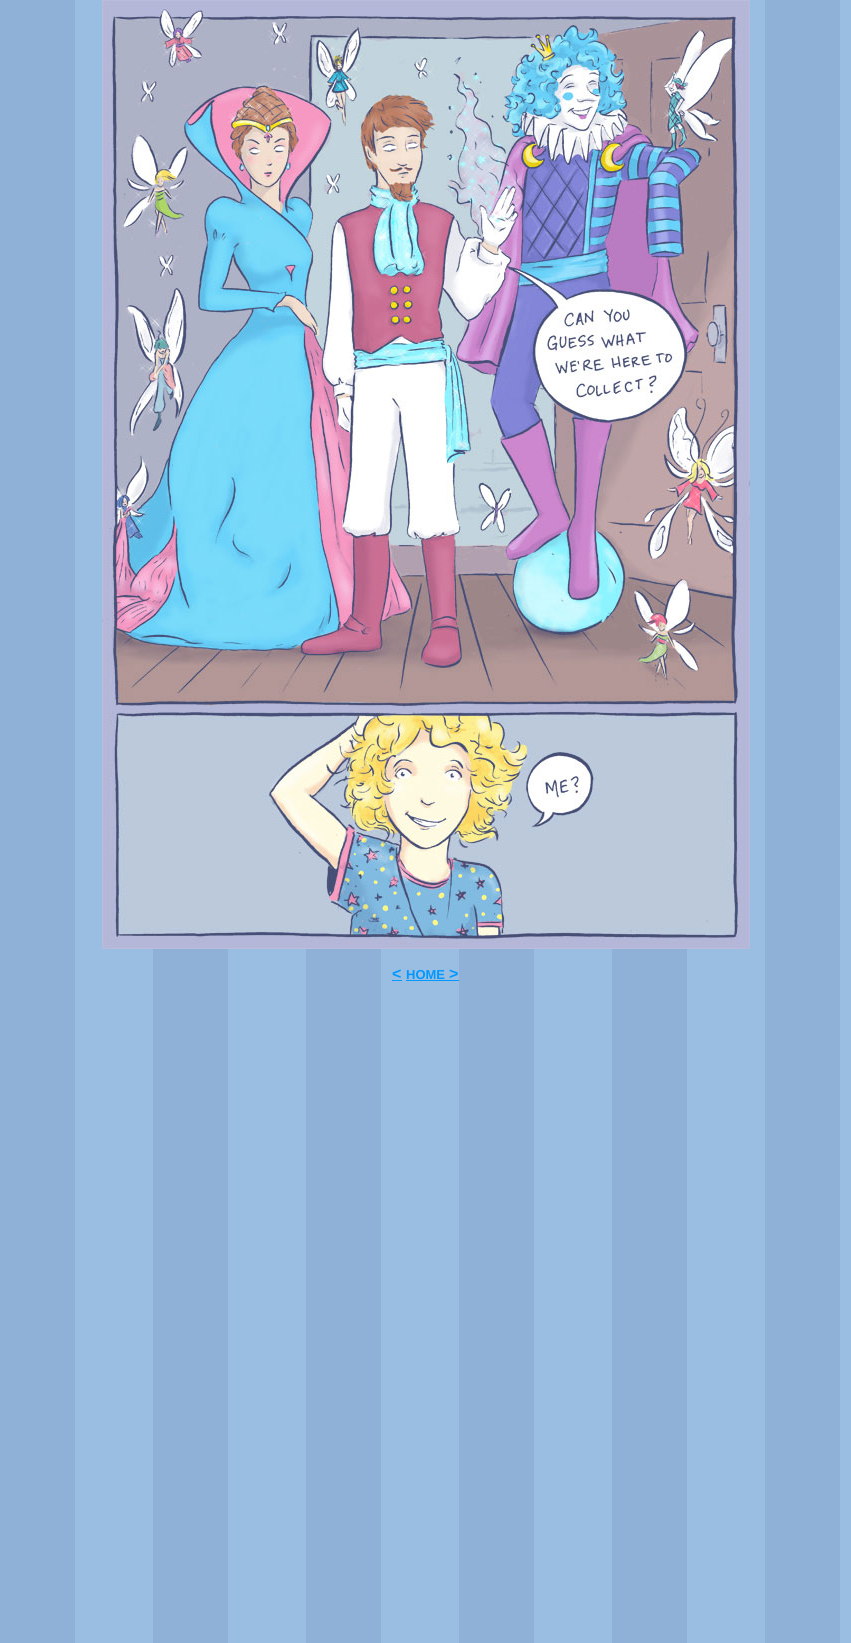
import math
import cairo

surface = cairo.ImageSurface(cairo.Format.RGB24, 851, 1643)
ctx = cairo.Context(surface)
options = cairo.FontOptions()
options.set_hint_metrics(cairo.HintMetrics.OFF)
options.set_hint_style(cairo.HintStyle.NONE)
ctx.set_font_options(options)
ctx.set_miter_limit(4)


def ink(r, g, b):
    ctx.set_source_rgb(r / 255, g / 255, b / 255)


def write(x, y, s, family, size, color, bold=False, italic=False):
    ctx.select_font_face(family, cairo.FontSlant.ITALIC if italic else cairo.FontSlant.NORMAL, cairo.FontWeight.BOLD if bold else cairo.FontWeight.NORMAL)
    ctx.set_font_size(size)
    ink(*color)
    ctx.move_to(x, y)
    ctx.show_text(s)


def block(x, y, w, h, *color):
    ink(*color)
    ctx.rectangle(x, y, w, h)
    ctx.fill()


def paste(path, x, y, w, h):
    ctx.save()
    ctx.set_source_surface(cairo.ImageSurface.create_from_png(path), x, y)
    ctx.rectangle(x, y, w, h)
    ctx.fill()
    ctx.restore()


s1 = dict(family="Liberation Sans", size=16, color=(0, 153, 255), bold=True)
s2 = dict(family="Liberation Sans", size=13, color=(0, 153, 255), bold=True)

ink(255, 255, 255)
ctx.paint()
paste("pic1.png", 0, 0, 851, 1643)
paste("pic2.png", 102, 0, 648, 949)
write(392, 979, "<", **s1)
block(392, 980, 10, 1, 0, 153, 255)
write(406, 979, "HOME", **s2)
block(406, 980, 53, 1, 0, 153, 255)
write(449, 979, ">", **s1)
surface.write_to_png("screenshot.png")
